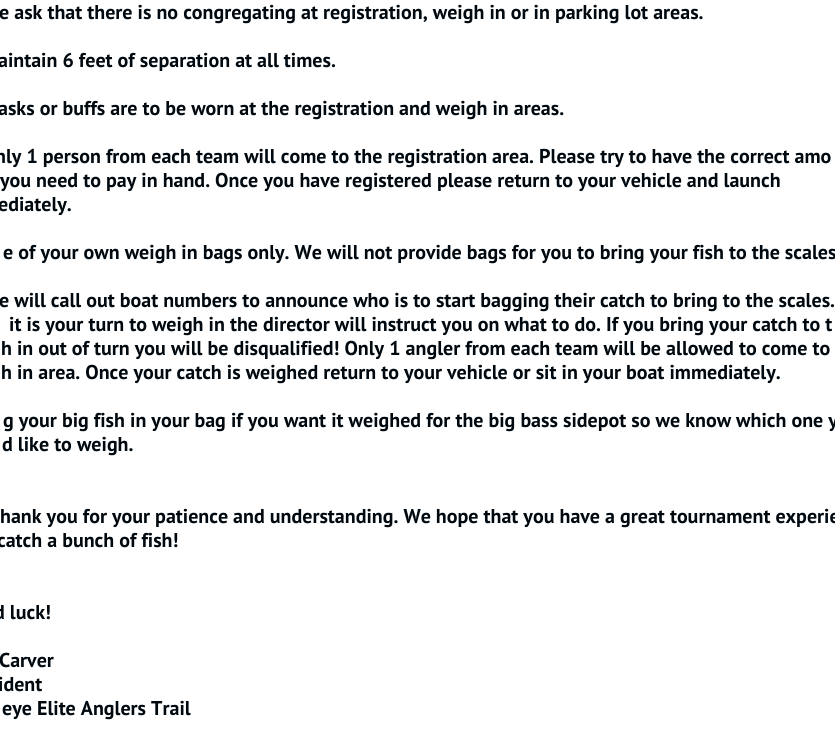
import math
import cairo

surface = cairo.ImageSurface(cairo.Format.RGB24, 835, 740)
ctx = cairo.Context(surface)
options = cairo.FontOptions()
options.set_hint_metrics(cairo.HintMetrics.OFF)
options.set_hint_style(cairo.HintStyle.NONE)
ctx.set_font_options(options)
ctx.set_miter_limit(4)


def ink(r, g, b):
    ctx.set_source_rgb(r / 255, g / 255, b / 255)


def write(x, y, s, family, size, color, bold=False, italic=False):
    ctx.select_font_face(family, cairo.FontSlant.ITALIC if italic else cairo.FontSlant.NORMAL, cairo.FontWeight.BOLD if bold else cairo.FontWeight.NORMAL)
    ctx.set_font_size(size)
    ink(*color)
    ctx.move_to(x, y)
    ctx.show_text(s)


s1 = dict(family="PT Sans", size=20, color=(0, 9, 15), bold=True)

ink(255, 255, 255)
ctx.paint()
write(-1, 19, "e ask that there is no congregating at registration, weigh in or in parking lot areas.", **s1)
write(-2, 67, "aintain 6 feet of separation at all times.", **s1)
write(-2, 115, "asks or buffs are to be worn at the registration and weigh in areas.", **s1)
write(-5, 163, "nly 1 person from each team will come to the registration area. Please try to have the correct amo", **s1)
write(0, 187, "you need to pay in hand. Once you have registered please return to your vehicle and launch", **s1)
write(-2, 211, "ediately.", **s1)
write(3, 259, "e of your own weigh in bags only. We will not provide bags for you to bring your fish to the scales", **s1)
write(-1, 307, "e will call out boat numbers to announce who is to start bagging their catch to bring to the scales.", **s1)
write(9, 331, "it is your turn to weigh in the director will instruct you on what to do. If you bring your catch to t", **s1)
write(1, 355, "h in out of turn you will be disqualified! Only 1 angler from each team will be allowed to come to", **s1)
write(1, 379, "h in area. Once your catch is weighed return to your vehicle or sit in your boat immediately.", **s1)
write(3, 427, "g your big fish in your bag if you want it weighed for the big bass sidepot so we know which one y", **s1)
write(2, 451, "d like to weigh.", **s1)
write(0, 523, "hank you for your patience and understanding. We hope that you have a great tournament experie", **s1)
write(-3, 547, "catch a bunch of fish!", **s1)
write(-6, 619, "d luck!", **s1)
write(-1, 667, "Carver", **s1)
write(-2, 691, "ident", **s1)
write(2, 715, "eye Elite Anglers Trail", **s1)
surface.write_to_png("screenshot.png")
